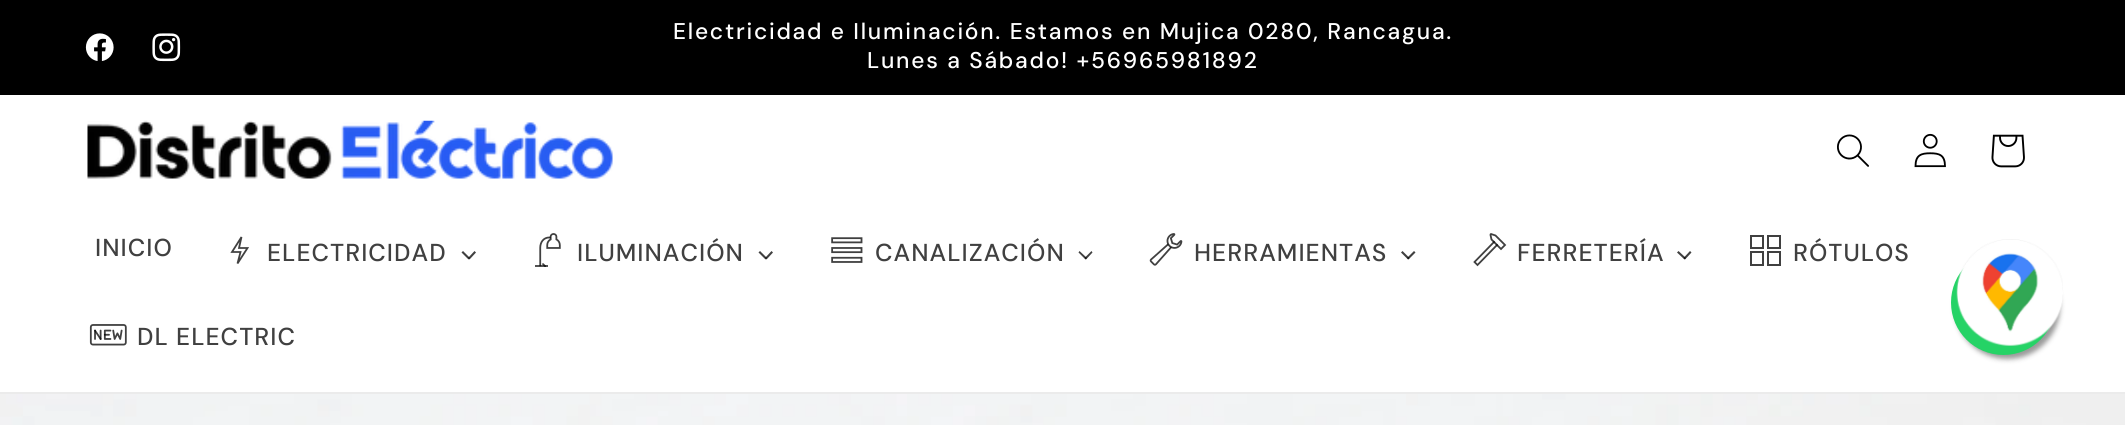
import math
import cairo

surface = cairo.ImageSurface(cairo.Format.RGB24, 2125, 425)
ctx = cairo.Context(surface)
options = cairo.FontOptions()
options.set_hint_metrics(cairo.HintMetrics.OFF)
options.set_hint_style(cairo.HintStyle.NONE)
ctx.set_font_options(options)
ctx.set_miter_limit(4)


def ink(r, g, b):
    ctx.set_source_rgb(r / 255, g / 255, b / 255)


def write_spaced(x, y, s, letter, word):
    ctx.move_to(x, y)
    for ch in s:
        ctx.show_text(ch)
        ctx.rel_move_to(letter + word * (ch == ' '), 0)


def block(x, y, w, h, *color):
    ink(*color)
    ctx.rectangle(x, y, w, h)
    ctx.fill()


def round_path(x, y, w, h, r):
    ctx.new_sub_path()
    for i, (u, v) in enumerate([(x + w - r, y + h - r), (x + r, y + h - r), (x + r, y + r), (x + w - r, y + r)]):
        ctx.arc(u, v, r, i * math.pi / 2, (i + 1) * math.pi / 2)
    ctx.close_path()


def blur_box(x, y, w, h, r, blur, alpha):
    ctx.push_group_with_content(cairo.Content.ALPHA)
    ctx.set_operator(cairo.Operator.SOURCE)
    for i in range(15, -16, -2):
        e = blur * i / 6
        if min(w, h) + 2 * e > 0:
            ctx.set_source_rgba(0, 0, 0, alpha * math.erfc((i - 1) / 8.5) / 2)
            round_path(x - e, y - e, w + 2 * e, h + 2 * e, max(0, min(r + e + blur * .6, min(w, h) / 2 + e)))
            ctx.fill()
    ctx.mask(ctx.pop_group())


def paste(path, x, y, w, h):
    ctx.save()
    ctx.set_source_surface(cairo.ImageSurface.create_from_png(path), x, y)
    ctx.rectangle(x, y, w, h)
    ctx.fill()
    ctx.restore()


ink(255, 255, 255)
ctx.paint()
block(0, 0, 2125, 95, 0, 0, 0)
paste("pic1.png", 85, 33, 29, 28)
paste("pic2.png", 152, 33, 29, 29)
ctx.select_font_face("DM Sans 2 Medium")
ctx.set_font_size(22.75)
ink(255, 255, 255)
write_spaced(673, 39, "Electricidad e Iluminación. Estamos en Mujica 0280, Rancagua.", 1.75, 0)
write_spaced(867, 68, "Lunes a Sábado! +56965981892", 1.75, 0)
block(0, 392, 2125, 2, 235, 235, 235)
paste("pic3.png", 87, 120, 526, 59)
paste("pic4.png", 1837, 134, 32, 33)
paste("pic5.png", 1914, 133, 32, 35)
paste("pic6.png", 1991, 134, 34, 34)
ctx.select_font_face("DM Sans Medium")
ctx.set_font_size(24.5)
ink(64, 64, 64)
write_spaced(95, 256, "INICIO", 1, 0)
ctx.new_path()
ctx.move_to(241.5, 237)
ctx.line_to(239, 248)
ctx.line_to(247.5, 248)
ctx.line_to(237.5, 263.5)
ctx.line_to(240.5, 252)
ctx.line_to(232, 252)
ctx.close_path()
ctx.set_line_width(1.8)
ctx.set_line_cap(cairo.LineCap.SQUARE)
ctx.stroke()
write_spaced(267, 261, "ELECTRICIDAD", 1, 0)
ctx.new_path()
ctx.move_to(474.5, 251)
ctx.line_to(476, 252.5)
ctx.line_to(469.5, 259.5)
ctx.line_to(468, 258)
ctx.close_path()
ctx.fill()
ctx.set_source_rgba(0, 0, 0, 0.75)
ctx.new_path()
ctx.move_to(463, 251)
ctx.line_to(470, 258)
ctx.line_to(468.5, 259.5)
ctx.line_to(461.5, 252.5)
ctx.close_path()
ctx.fill()
paste("pic7.png", 535, 233, 26, 34)
ink(64, 64, 64)
write_spaced(577, 261, "ILUMINACIÓN", 1, 0)
ctx.new_path()
ctx.move_to(771.5, 251)
ctx.line_to(773, 252.5)
ctx.line_to(766.5, 259.5)
ctx.line_to(765, 258)
ctx.close_path()
ctx.fill()
ctx.set_source_rgba(0, 0, 0, 0.75)
ctx.new_path()
ctx.move_to(760, 251)
ctx.line_to(767, 258)
ctx.line_to(765.5, 259.5)
ctx.line_to(758.5, 252.5)
ctx.close_path()
ctx.fill()
paste("pic8.png", 831, 237, 32, 26)
ink(64, 64, 64)
write_spaced(875, 261, "CANALIZACIÓN", 1, 0)
ctx.new_path()
ctx.move_to(1091.5, 251)
ctx.line_to(1092.5, 252.5)
ctx.line_to(1086, 259.5)
ctx.line_to(1084.5, 258)
ctx.close_path()
ctx.fill()
ctx.set_source_rgba(0, 0, 0, 0.75)
ctx.new_path()
ctx.move_to(1079.5, 251)
ctx.line_to(1087, 258)
ctx.line_to(1085.5, 259.5)
ctx.line_to(1078.5, 252.5)
ctx.close_path()
ctx.fill()
paste("pic9.png", 1149, 233, 34, 33)
ink(64, 64, 64)
write_spaced(1194, 261, "HERRAMIENTAS", 1, 0)
ctx.new_path()
ctx.move_to(1414, 251)
ctx.line_to(1415.5, 252.5)
ctx.line_to(1408.5, 259.5)
ctx.line_to(1407, 258)
ctx.close_path()
ctx.fill()
ctx.set_source_rgba(0, 0, 0, 0.75)
ctx.new_path()
ctx.move_to(1402.5, 251)
ctx.line_to(1409.5, 258)
ctx.line_to(1408, 259.5)
ctx.line_to(1401, 252.5)
ctx.close_path()
ctx.fill()
ctx.new_path()
ctx.move_to(1497, 245)
ctx.line_to(1477.5, 265)
ctx.line_to(1474.5, 262)
ctx.line_to(1494, 242)
ink(64, 64, 64)
ctx.stroke()
ctx.new_path()
ctx.move_to(1503, 247)
ctx.line_to(1501, 249)
ctx.line_to(1491.5, 239.5)
ctx.line_to(1490.5, 235)
ctx.curve_to(1490.5, 234.5, 1490.5, 234, 1491, 234)
ctx.line_to(1495.5, 235.5)
ctx.line_to(1505, 245)
ctx.close_path()
ctx.set_source_rgba(0, 0, 0, 0.75)
ctx.stroke()
ink(64, 64, 64)
write_spaced(1517, 261, "FERRETERÍA", 1, 0)
ctx.new_path()
ctx.move_to(1690, 251)
ctx.line_to(1691.5, 252.5)
ctx.line_to(1685, 259.5)
ctx.line_to(1683.5, 258)
ctx.close_path()
ctx.fill()
ctx.set_source_rgba(0, 0, 0, 0.75)
ctx.new_path()
ctx.move_to(1678.5, 251)
ctx.line_to(1686, 258)
ctx.line_to(1684.5, 259.5)
ctx.line_to(1677, 252.5)
ctx.close_path()
ctx.fill()
ctx.rectangle(1751, 236, 12, 12)
ink(64, 64, 64)
ctx.set_line_width(2)
ctx.set_line_cap(cairo.LineCap.BUTT)
ctx.stroke()
ctx.rectangle(1768, 236, 12, 12)
ctx.stroke()
ctx.rectangle(1751, 252, 12, 13)
ctx.stroke()
ctx.rectangle(1768, 252, 12, 13)
ctx.stroke()
write_spaced(1793, 261, "RÓTULOS", 1, 0)
paste("pic10.png", 89, 324, 38, 22)
write_spaced(137, 345, "DL ELECTRIC", 1, 0)
ink(153, 153, 153)
blur_box(1955, 254, 105, 105, 52.5, 2.5, 1)
ink(37, 211, 102)
ctx.arc(2003.5, 302.5, 52.5, 0, 2 * math.pi)
ctx.fill()
paste("pic11.png", 1956, 239, 107, 107)
paste("pic12.png", 0, 394, 2125, 31)
surface.write_to_png("screenshot.png")
